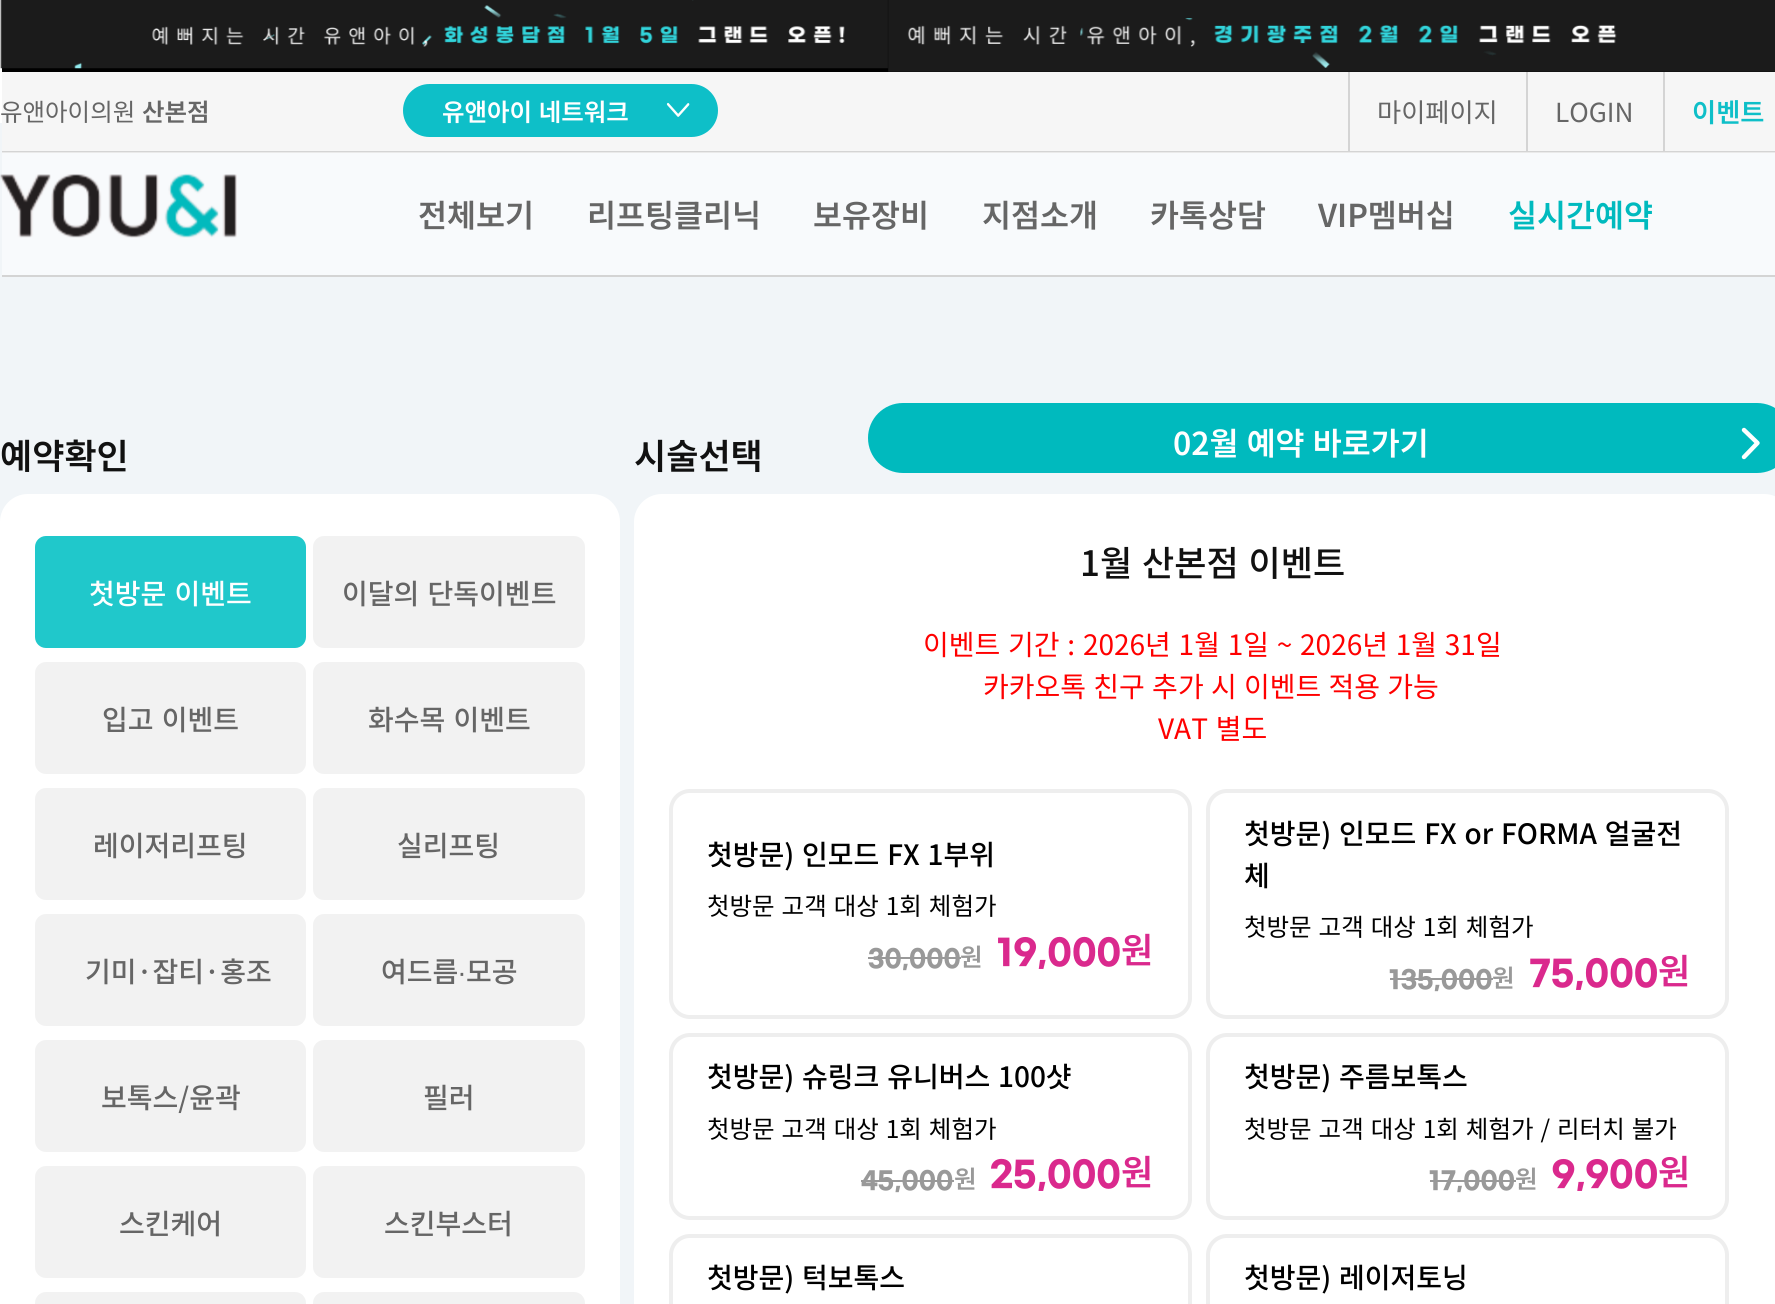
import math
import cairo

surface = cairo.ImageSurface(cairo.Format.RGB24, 1775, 1304)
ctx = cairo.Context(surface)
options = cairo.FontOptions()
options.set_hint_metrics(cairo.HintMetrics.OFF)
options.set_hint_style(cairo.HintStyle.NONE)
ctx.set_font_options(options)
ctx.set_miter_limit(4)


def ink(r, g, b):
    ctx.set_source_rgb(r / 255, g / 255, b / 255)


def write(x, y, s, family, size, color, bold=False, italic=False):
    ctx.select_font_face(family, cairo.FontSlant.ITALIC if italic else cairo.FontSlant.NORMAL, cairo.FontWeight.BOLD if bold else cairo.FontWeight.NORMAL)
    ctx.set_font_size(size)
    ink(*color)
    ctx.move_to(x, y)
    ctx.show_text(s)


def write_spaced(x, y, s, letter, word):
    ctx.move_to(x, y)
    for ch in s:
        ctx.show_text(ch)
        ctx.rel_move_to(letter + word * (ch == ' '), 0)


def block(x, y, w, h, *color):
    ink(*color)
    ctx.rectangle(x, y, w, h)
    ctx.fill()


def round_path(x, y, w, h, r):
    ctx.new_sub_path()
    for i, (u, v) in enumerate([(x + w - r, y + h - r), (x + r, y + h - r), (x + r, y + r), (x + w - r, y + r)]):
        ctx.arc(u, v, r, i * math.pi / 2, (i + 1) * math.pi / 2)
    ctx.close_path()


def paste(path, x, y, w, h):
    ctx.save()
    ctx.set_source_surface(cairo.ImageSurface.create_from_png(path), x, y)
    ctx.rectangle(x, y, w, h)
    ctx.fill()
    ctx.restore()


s1 = dict(family="Noto Sans KR", size=24.5, color=(102, 102, 102))
s2 = dict(family="Noto Sans KR SemiBold", size=24.5, color=(102, 102, 102))
s3 = dict(family="Noto Sans KR", size=26.25, color=(102, 102, 102))
s4 = dict(family="Noto Sans KR SemiBold", size=26.25, color=(14, 191, 200))
s5 = dict(family="Noto Sans KR SemiBold", size=31.5, color=(102, 102, 102))
s6 = dict(family="Noto Sans KR SemiBold", size=31.5, color=(0, 186, 190))
s7 = dict(family="Noto Sans KR SemiBold", size=35, color=(17, 17, 17))
s8 = dict(family="Noto Sans KR Medium", size=28, color=(102, 102, 102))
s9 = dict(family="Liberation Sans", size=28, color=(102, 102, 102))
s10 = dict(family="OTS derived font", size=24.5, color=(153, 153, 153), bold=True)
s11 = dict(family="Noto Sans KR SemiBold", size=24.5, color=(153, 153, 153))
s12 = dict(family="OTS derived font", size=35, color=(218, 41, 141), bold=True)
s13 = dict(family="Noto Sans KR SemiBold", size=35, color=(218, 41, 141))
s14 = dict(family="Noto Sans KR Medium", size=28, color=(0, 0, 0))

ink(255, 255, 255)
ctx.paint()
block(2, 0, 1773, 72, 0, 0, 0)
paste("pic1.png", 0, 0, 889, 69)
paste("pic2.png", 888, 0, 887, 72)
block(0, 123, 1775, 1181, 241, 245, 248)
block(2, 72, 1773, 79, 246, 246, 246)
block(2, 151, 1773, 1, 212, 212, 212)
block(2, 152, 1773, 1, 234, 234, 234)
write(0, 121, "유앤아이의원", **s1)
write(142, 121, "산본점", **s2)
ink(14, 191, 200)
round_path(403, 84, 315, 53, 26.5)
ctx.fill()
ink(255, 255, 255)
write_spaced(442, 121, "유앤아이 네트워크", 0, 1)
paste("pic3.png", 666, 102, 24, 15)
block(1348, 72, 2, 79, 212, 212, 212)
write(1377, 122, "마이페이지", **s3)
block(1526, 72, 2, 79, 212, 212, 212)
write(1555, 122, "LOGIN", **s3)
block(1663, 72, 2, 79, 212, 212, 212)
write(1692, 122, "이벤트", **s4)
block(2, 275, 1773, 2, 212, 212, 212)
block(2, 153, 1773, 122, 248, 250, 252)
paste("pic4.png", 0, 173, 237, 65)
write(418, 227, "전체보기", **s5)
write(587, 227, "리프팅클리닉", **s5)
write(813, 227, "보유장비", **s5)
write(982, 227, "지점소개", **s5)
write(1150, 227, "카톡상담", **s5)
write(1318, 227, "VIP멤버십", **s5)
write(1508, 227, "실시간예약", **s6)
write(0, 469, "예약확인", **s7)
ink(255, 255, 255)
round_path(0, 494, 620, 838, 28)
ctx.fill()
ink(32, 200, 203)
round_path(35, 536, 271, 112, 11)
ctx.fill()
ctx.select_font_face("Noto Sans KR Medium")
ctx.set_font_size(28)
ink(255, 255, 255)
write_spaced(89, 604, "첫방문 이벤트", 0, 2)
ink(242, 242, 242)
round_path(313, 536, 272, 112, 11)
ctx.fill()
ink(102, 102, 102)
write_spaced(342, 604, "이달의 단독이벤트", 0, 2)
ink(242, 242, 242)
round_path(35, 662, 271, 112, 11)
ctx.fill()
ink(102, 102, 102)
write_spaced(102, 730, "입고 이벤트", 0, 2)
ink(242, 242, 242)
round_path(313, 662, 272, 112, 11)
ctx.fill()
ink(102, 102, 102)
write_spaced(368, 730, "화수목 이벤트", 0, 2)
ink(242, 242, 242)
round_path(35, 788, 271, 112, 11)
ctx.fill()
write(93, 856, "레이저리프팅", **s8)
ink(242, 242, 242)
round_path(313, 788, 272, 112, 11)
ctx.fill()
write(397, 856, "실리프팅", **s8)
ink(242, 242, 242)
round_path(35, 914, 271, 112, 11)
ctx.fill()
write(85, 982, "기미·잡티·홍조", **s8)
ink(242, 242, 242)
round_path(313, 914, 272, 112, 11)
ctx.fill()
write(381, 982, "여드름", **s8)
write(458, 982, "∙", **s9)
write(466, 982, "모공", **s8)
ink(242, 242, 242)
round_path(35, 1040, 271, 112, 11)
ctx.fill()
write(101, 1108, "보톡스/윤곽", **s8)
ink(242, 242, 242)
round_path(313, 1040, 272, 112, 11)
ctx.fill()
write(423, 1108, "필러", **s8)
ink(242, 242, 242)
round_path(35, 1166, 271, 112, 11)
ctx.fill()
write(119, 1234, "스킨케어", **s8)
ink(242, 242, 242)
round_path(313, 1166, 272, 112, 11)
ctx.fill()
write(384, 1234, "스킨부스터", **s8)
ink(242, 242, 242)
round_path(35, 1292, 271, 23, 11)
ctx.fill()
round_path(313, 1292, 272, 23, 11)
ctx.fill()
write(634, 469, "시술선택", **s7)
ink(0, 186, 190)
round_path(868, 403, 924, 70, 35)
ctx.fill()
ctx.set_font_size(31.5)
ink(255, 255, 255)
write_spaced(1173, 455, "02월 예약 바로가기", 0, 1)
ctx.new_path()
ctx.move_to(1744, 457)
ctx.line_to(1757.5, 443)
ctx.line_to(1744, 430)
ctx.set_line_width(4.4)
ctx.set_line_cap(cairo.LineCap.ROUND)
ctx.set_line_join(cairo.LineJoin.ROUND)
ctx.stroke()
round_path(634, 494, 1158, 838, 28)
ctx.fill()
ctx.select_font_face("Noto Sans KR Medium")
ctx.set_font_size(35)
ink(17, 17, 17)
write_spaced(1080, 576, "1월 산본점 이벤트", 0, 2)
ctx.select_font_face("Noto Sans KR")
ctx.set_font_size(28)
ink(255, 0, 0)
write_spaced(923, 655, "이벤트 기간 : 2026년 1월 1일 ~ 2026년 1월 31일", 0, 1.5)
write_spaced(983, 697, "카카오톡 친구 추가 시 이벤트 적용 가능", 0, 1)
write_spaced(1158, 739, "VAT 별도", 0, 1.5)
round_path(671, 791, 519, 226, 19)
ink(238, 238, 238)
ctx.set_line_width(4)
ctx.set_line_cap(cairo.LineCap.BUTT)
ctx.set_line_join(cairo.LineJoin.MITER)
ctx.stroke()
ctx.select_font_face("Noto Sans KR Medium")
ink(0, 0, 0)
write_spaced(707, 865, "첫방문) 인모드 FX 1부위", 0, 1.5)
ctx.select_font_face("Noto Sans KR")
ctx.set_font_size(24.5)
write_spaced(707, 915, "첫방문 고객 대상 1회 체험가", 0, 1.5)
write(868, 966, "30,000", **s10)
block(868, 957, 93, 2, 153, 153, 153)
write(960, 966, "원", **s11)
write(997, 963, "19,000", **s12)
write(1121, 963, "원", **s13)
round_path(1208, 791, 519, 226, 19)
ink(238, 238, 238)
ctx.stroke()
ctx.select_font_face("Noto Sans KR Medium")
ctx.set_font_size(28)
ink(0, 0, 0)
write_spaced(1244, 844, "첫방문) 인모드 FX or FORMA 얼굴전", 0, 1.5)
write(1244, 886, "체", **s14)
ctx.select_font_face("Noto Sans KR")
ctx.set_font_size(24.5)
write_spaced(1244, 936, "첫방문 고객 대상 1회 체험가", 0, 1.5)
write(1389, 987, "135,000", **s10)
block(1390, 978, 103, 2, 153, 153, 153)
write(1492, 987, "원", **s11)
write(1529, 984, "75,000", **s12)
write(1658, 984, "원", **s13)
round_path(671, 1035, 519, 183, 19)
ink(238, 238, 238)
ctx.stroke()
ctx.select_font_face("Noto Sans KR Medium")
ctx.set_font_size(28)
ink(0, 0, 0)
write_spaced(707, 1087, "첫방문) 슈링크 유니버스 100샷", 0, 1.5)
ctx.select_font_face("Noto Sans KR")
ctx.set_font_size(24.5)
write_spaced(707, 1138, "첫방문 고객 대상 1회 체험가", 0, 1.5)
write(861, 1188, "45,000", **s10)
block(861, 1180, 93, 2, 153, 153, 153)
write(954, 1188, "원", **s11)
write(990, 1185, "25,000", **s12)
write(1121, 1185, "원", **s13)
round_path(1208, 1035, 519, 183, 19)
ink(238, 238, 238)
ctx.stroke()
ctx.select_font_face("Noto Sans KR Medium")
ctx.set_font_size(28)
ink(0, 0, 0)
write_spaced(1244, 1087, "첫방문) 주름보톡스", 0, 1.5)
ctx.select_font_face("Noto Sans KR")
ctx.set_font_size(24.5)
write_spaced(1244, 1138, "첫방문 고객 대상 1회 체험가 / 리터치 불가", 0, 1.5)
write(1429, 1188, "17,000", **s10)
block(1430, 1180, 86, 2, 153, 153, 153)
write(1515, 1188, "원", **s11)
write(1552, 1185, "9,900", **s12)
write(1658, 1185, "원", **s13)
round_path(671, 1236, 519, 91, 19)
ink(238, 238, 238)
ctx.stroke()
ctx.select_font_face("Noto Sans KR Medium")
ctx.set_font_size(28)
ink(0, 0, 0)
write_spaced(707, 1288, "첫방문) 턱보톡스", 0, 1.5)
round_path(1208, 1236, 519, 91, 19)
ink(238, 238, 238)
ctx.stroke()
ink(0, 0, 0)
write_spaced(1244, 1288, "첫방문) 레이저토닝", 0, 1.5)
surface.write_to_png("screenshot.png")
